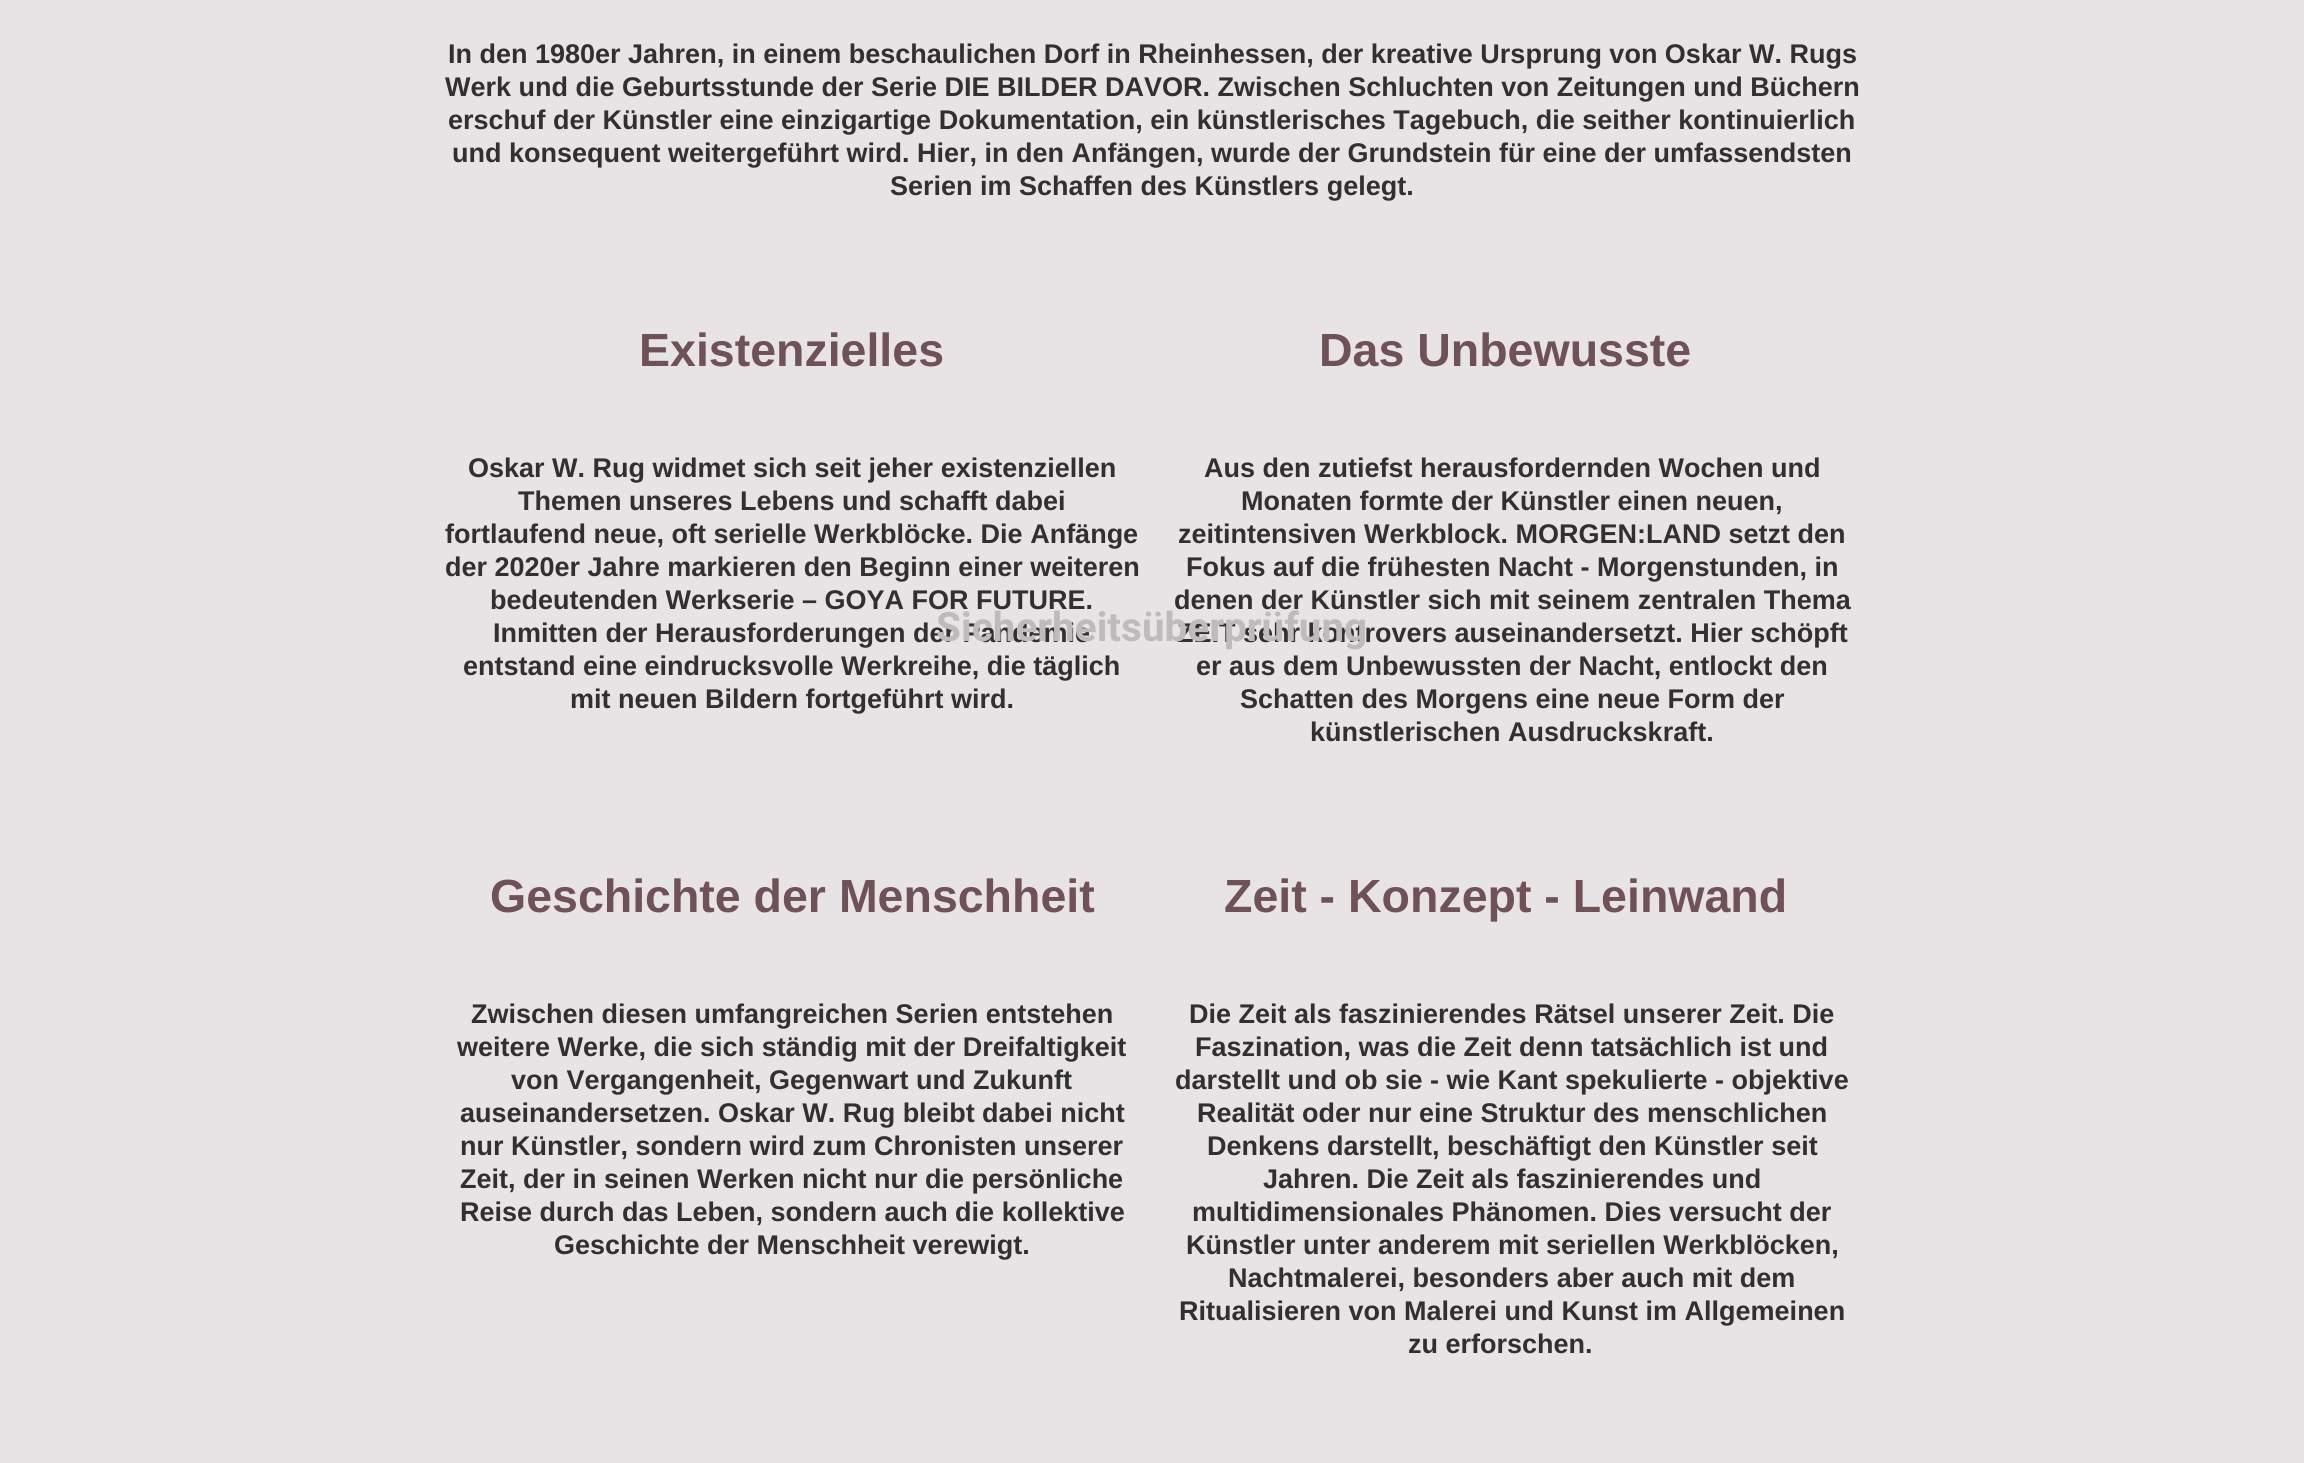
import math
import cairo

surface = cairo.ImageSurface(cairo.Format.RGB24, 2304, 1463)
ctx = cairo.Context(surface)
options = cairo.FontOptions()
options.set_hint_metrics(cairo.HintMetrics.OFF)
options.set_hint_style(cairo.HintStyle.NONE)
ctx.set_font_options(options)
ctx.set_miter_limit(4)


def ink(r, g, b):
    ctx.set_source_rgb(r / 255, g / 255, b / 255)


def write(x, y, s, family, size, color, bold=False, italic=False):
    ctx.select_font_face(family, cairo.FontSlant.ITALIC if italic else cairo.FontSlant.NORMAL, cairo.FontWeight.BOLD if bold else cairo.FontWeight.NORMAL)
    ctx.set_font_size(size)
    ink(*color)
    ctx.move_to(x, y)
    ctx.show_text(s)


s1 = dict(family="Liberation Sans", size=27, color=(48, 48, 48), bold=True)
s2 = dict(family="Liberation Sans", size=46.5, color=(111, 81, 88), bold=True)
s3 = dict(family="Roboto", size=40.5, color=(191, 187, 188), bold=True)

ink(232, 227, 228)
ctx.paint()
write(448, 63, "In den 1980er Jahren, in einem beschaulichen Dorf in Rheinhessen, der kreative Ursprung von Oskar W. Rugs", **s1)
write(445, 96, "Werk und die Geburtsstunde der Serie DIE BILDER DAVOR. Zwischen Schluchten von Zeitungen und Büchern", **s1)
write(448, 129, "erschuf der Künstler eine einzigartige Dokumentation, ein künstlerisches Tagebuch, die seither kontinuierlich", **s1)
write(452, 162, "und konsequent weitergeführt wird. Hier, in den Anfängen, wurde der Grundstein für eine der umfassendsten", **s1)
write(890, 195, "Serien im Schaffen des Künstlers gelegt.", **s1)
write(639, 366, "Existenzielles", **s2)
write(468, 477, "Oskar W. Rug widmet sich seit jeher existenziellen", **s1)
write(518, 510, "Themen unseres Lebens und schafft dabei", **s1)
write(445, 543, "fortlaufend neue, oft serielle Werkblöcke. Die Anfänge", **s1)
write(445, 576, "der 2020er Jahre markieren den Beginn einer weiteren", **s1)
write(490, 609, "bedeutenden Werkserie – GOYA FOR FUTURE.", **s1)
write(493, 642, "Inmitten der Herausforderungen der Pandemie", **s1)
write(463, 675, "entstand eine eindrucksvolle Werkreihe, die täglich", **s1)
write(570, 708, "mit neuen Bildern fortgeführt wird.", **s1)
write(1319, 366, "Das Unbewusste", **s2)
write(1204, 477, "Aus den zutiefst herausfordernden Wochen und", **s1)
write(1241, 510, "Monaten formte der Künstler einen neuen,", **s1)
write(1178, 543, "zeitintensiven Werkblock. MORGEN:LAND setzt den", **s1)
write(1186, 576, "Fokus auf die frühesten Nacht - Morgenstunden, in", **s1)
write(1174, 609, "denen der Künstler sich mit seinem zentralen Thema", **s1)
write(1177, 642, "ZEIT sehr kontrovers auseinandersetzt. Hier schöpft", **s1)
write(1196, 675, "er aus dem Unbewussten der Nacht, entlockt den", **s1)
write(1240, 708, "Schatten des Morgens eine neue Form der", **s1)
write(1310, 741, "künstlerischen Ausdruckskraft.", **s1)
write(490, 912, "Geschichte der Menschheit", **s2)
write(471, 1023, "Zwischen diesen umfangreichen Serien entstehen", **s1)
write(457, 1056, "weitere Werke, die sich ständig mit der Dreifaltigkeit", **s1)
write(511, 1089, "von Vergangenheit, Gegenwart und Zukunft", **s1)
write(460, 1122, "auseinandersetzen. Oskar W. Rug bleibt dabei nicht", **s1)
write(460, 1155, "nur Künstler, sondern wird zum Chronisten unserer", **s1)
write(460, 1188, "Zeit, der in seinen Werken nicht nur die persönliche", **s1)
write(460, 1221, "Reise durch das Leben, sondern auch die kollektive", **s1)
write(554, 1254, "Geschichte der Menschheit verewigt.", **s1)
write(1224, 912, "Zeit - Konzept - Leinwand", **s2)
write(1189, 1023, "Die Zeit als faszinierendes Rätsel unserer Zeit. Die", **s1)
write(1195, 1056, "Faszination, was die Zeit denn tatsächlich ist und", **s1)
write(1175, 1089, "darstellt und ob sie - wie Kant spekulierte - objektive", **s1)
write(1197, 1122, "Realität oder nur eine Struktur des menschlichen", **s1)
write(1207, 1155, "Denkens darstellt, beschäftigt den Künstler seit", **s1)
write(1263, 1188, "Jahren. Die Zeit als faszinierendes und", **s1)
write(1192, 1221, "multidimensionales Phänomen. Dies versucht der", **s1)
write(1186, 1254, "Künstler unter anderem mit seriellen Werkblöcken,", **s1)
write(1228, 1287, "Nachtmalerei, besonders aber auch mit dem", **s1)
write(1179, 1320, "Ritualisieren von Malerei und Kunst im Allgemeinen", **s1)
write(1408, 1353, "zu erforschen.", **s1)
write(936, 641, "Sicherheitsüberprüfung", **s3)
surface.write_to_png("screenshot.png")
